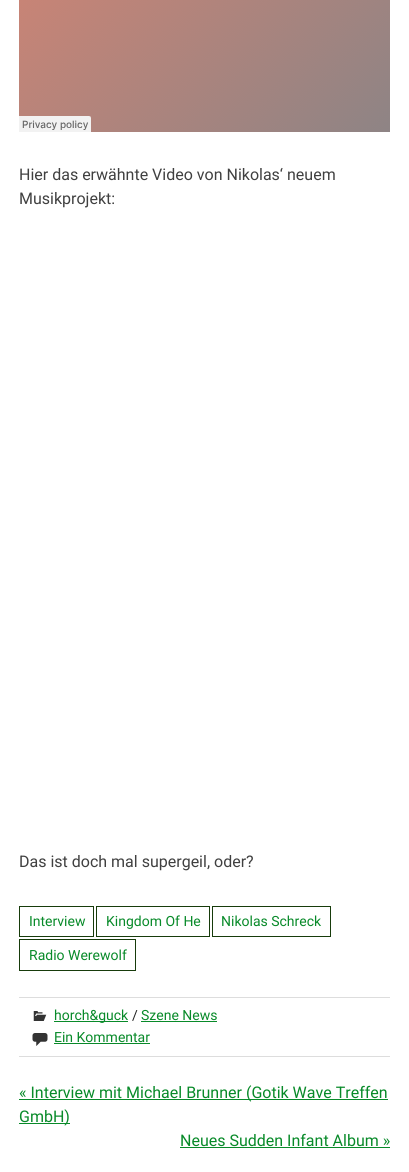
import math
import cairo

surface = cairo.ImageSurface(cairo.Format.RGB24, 409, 1172)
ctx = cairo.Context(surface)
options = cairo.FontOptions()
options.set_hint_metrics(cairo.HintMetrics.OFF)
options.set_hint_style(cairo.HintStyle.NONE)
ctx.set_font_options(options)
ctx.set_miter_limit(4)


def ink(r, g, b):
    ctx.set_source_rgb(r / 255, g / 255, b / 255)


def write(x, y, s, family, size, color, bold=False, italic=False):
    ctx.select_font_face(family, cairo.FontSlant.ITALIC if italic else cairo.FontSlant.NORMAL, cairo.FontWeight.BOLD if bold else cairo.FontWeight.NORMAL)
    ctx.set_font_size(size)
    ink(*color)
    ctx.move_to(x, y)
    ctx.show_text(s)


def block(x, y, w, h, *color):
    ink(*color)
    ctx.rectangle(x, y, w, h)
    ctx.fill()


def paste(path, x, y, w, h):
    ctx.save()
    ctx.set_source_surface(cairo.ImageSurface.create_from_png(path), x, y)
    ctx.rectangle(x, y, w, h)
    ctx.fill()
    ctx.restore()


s1 = dict(family="Roboto", size=16, color=(64, 64, 64))
s2 = dict(family="Roboto", size=14, color=(8, 138, 41))
s3 = dict(family="Roboto", size=14, color=(34, 34, 34))
s4 = dict(family="Roboto", size=16, color=(8, 138, 41))

ink(255, 255, 255)
ctx.paint()
paste("pic1.png", 19, 0, 371, 132)
write(19, 180, "Hier das erwähnte Video von Nikolas‘ neuem", **s1)
write(19, 204, "Musikprojekt:", **s1)
write(19, 867, "Das ist doch mal supergeil, oder?", **s1)
ctx.rectangle(19.5, 906.5, 74, 30)
ink(23, 59, 11)
ctx.set_line_width(1)
ctx.stroke()
write(29, 926, "Interview", **s2)
ctx.rectangle(96.5, 906.5, 113, 30)
ink(23, 59, 11)
ctx.stroke()
write(106, 926, "Kingdom Of He", **s2)
ctx.rectangle(212.5, 906.5, 118, 30)
ink(23, 59, 11)
ctx.stroke()
write(221, 926, "Nikolas Schreck", **s2)
ctx.rectangle(19.5, 939.5, 116, 31)
ink(23, 59, 11)
ctx.stroke()
write(29, 960, "Radio Werewolf", **s2)
block(19, 997, 371, 1, 221, 221, 221)
block(19, 1056, 371, 1, 221, 221, 221)
paste("pic2.png", 33, 1011, 14, 10)
block(54, 1021, 74, 1, 8, 138, 41)
write(54, 1020, "horch&guck", **s2)
write(132, 1020, "/", **s3)
write(141, 1020, "Szene News", **s2)
block(141, 1021, 76, 1, 8, 138, 41)
paste("pic3.png", 32, 1033, 16, 13)
write(54, 1042, "Ein Kommentar", **s2)
block(54, 1043, 96, 1, 8, 138, 41)
block(19, 1099, 369, 1, 8, 138, 41)
write(19, 1098, "« Interview mit Michael Brunner (Gotik Wave Treffen", **s4)
block(19, 1123, 51, 1, 8, 138, 41)
write(19, 1122, "GmbH)", **s4)
write(180, 1146, "Neues Sudden Infant Album »", **s4)
block(180, 1147, 210, 1, 8, 138, 41)
surface.write_to_png("screenshot.png")
